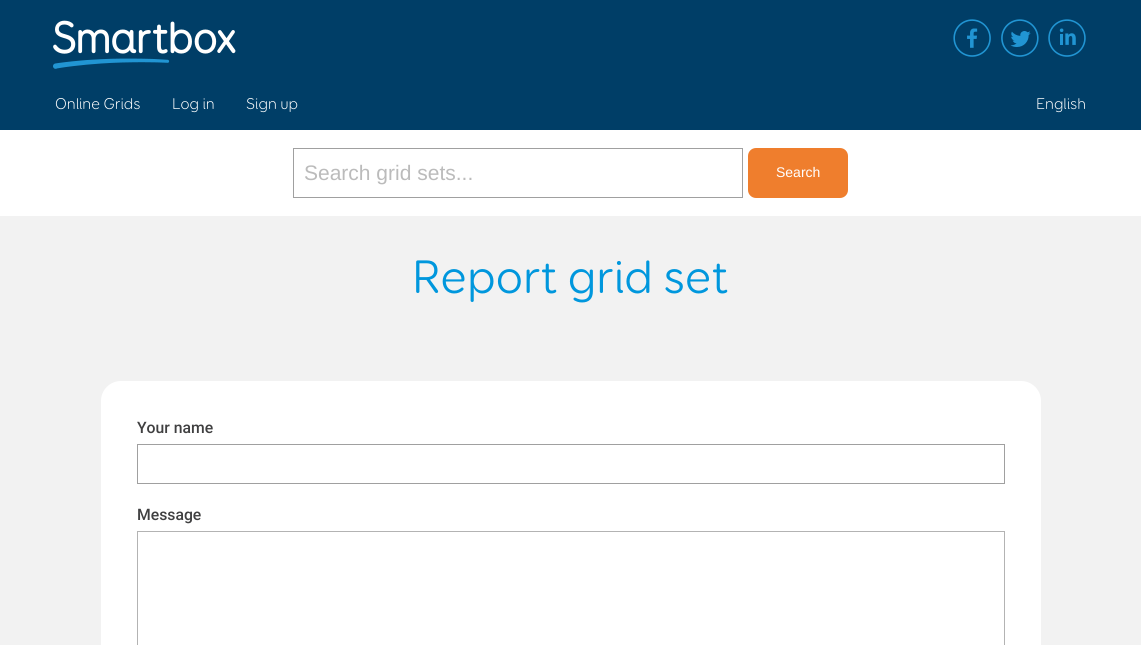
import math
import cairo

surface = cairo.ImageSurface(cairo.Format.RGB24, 1141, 645)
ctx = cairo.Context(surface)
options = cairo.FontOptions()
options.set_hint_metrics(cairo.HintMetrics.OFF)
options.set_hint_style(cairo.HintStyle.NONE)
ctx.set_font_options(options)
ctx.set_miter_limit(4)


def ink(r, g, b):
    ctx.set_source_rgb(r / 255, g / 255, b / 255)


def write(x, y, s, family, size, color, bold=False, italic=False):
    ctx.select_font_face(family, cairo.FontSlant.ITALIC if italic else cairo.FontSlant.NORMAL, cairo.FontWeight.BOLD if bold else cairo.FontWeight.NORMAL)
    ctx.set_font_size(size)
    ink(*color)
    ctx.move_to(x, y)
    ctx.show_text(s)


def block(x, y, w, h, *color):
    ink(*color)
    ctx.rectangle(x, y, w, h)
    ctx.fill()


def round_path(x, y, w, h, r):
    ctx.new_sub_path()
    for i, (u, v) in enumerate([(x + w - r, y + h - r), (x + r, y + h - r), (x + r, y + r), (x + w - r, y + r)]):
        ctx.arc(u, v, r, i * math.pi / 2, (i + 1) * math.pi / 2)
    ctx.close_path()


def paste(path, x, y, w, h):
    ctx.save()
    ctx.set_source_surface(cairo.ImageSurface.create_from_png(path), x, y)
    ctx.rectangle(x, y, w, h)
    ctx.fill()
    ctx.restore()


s1 = dict(family="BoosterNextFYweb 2", size=15.75, color=(255, 255, 255))
s2 = dict(family="Liberation Sans", size=21, color=(187, 187, 187))
s3 = dict(family="Liberation Sans", size=14, color=(255, 255, 255))
s4 = dict(family="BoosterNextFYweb", size=47.25, color=(0, 151, 221))
s5 = dict(family="Roboto Medium", size=15.75, color=(64, 64, 65))

ink(0, 62, 103)
ctx.paint()
paste("pic1.png", 53, 20, 183, 49)
paste("pic2.png", 953, 19, 38, 38)
paste("pic3.png", 1001, 19, 38, 38)
paste("pic4.png", 1048, 19, 38, 38)
write(55, 109, "Online Grids", **s1)
write(172, 109, "Log in", **s1)
write(246, 109, "Sign up", **s1)
write(1036, 109, "English", **s1)
block(0, 130, 1141, 86, 255, 255, 255)
ctx.rectangle(293.5, 148.5, 449, 49)
ink(160, 160, 160)
ctx.set_line_width(1)
ctx.stroke()
write(304, 180, "Search grid sets...", **s2)
ink(239, 126, 45)
round_path(748, 148, 100, 50, 8)
ctx.fill()
write(776, 177, "Search", **s3)
block(0, 216, 1141, 429, 242, 242, 242)
write(412, 293, "Report grid set", **s4)
ink(255, 255, 255)
round_path(101, 381, 940, 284, 20)
ctx.fill()
write(137, 433, "Your name", **s5)
ctx.rectangle(137.5, 444.5, 867, 39)
ink(160, 160, 160)
ctx.stroke()
write(137, 520, "Message", **s5)
ctx.rectangle(137.5, 531.5, 867, 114)
ink(179, 179, 179)
ctx.stroke()
surface.write_to_png("screenshot.png")
